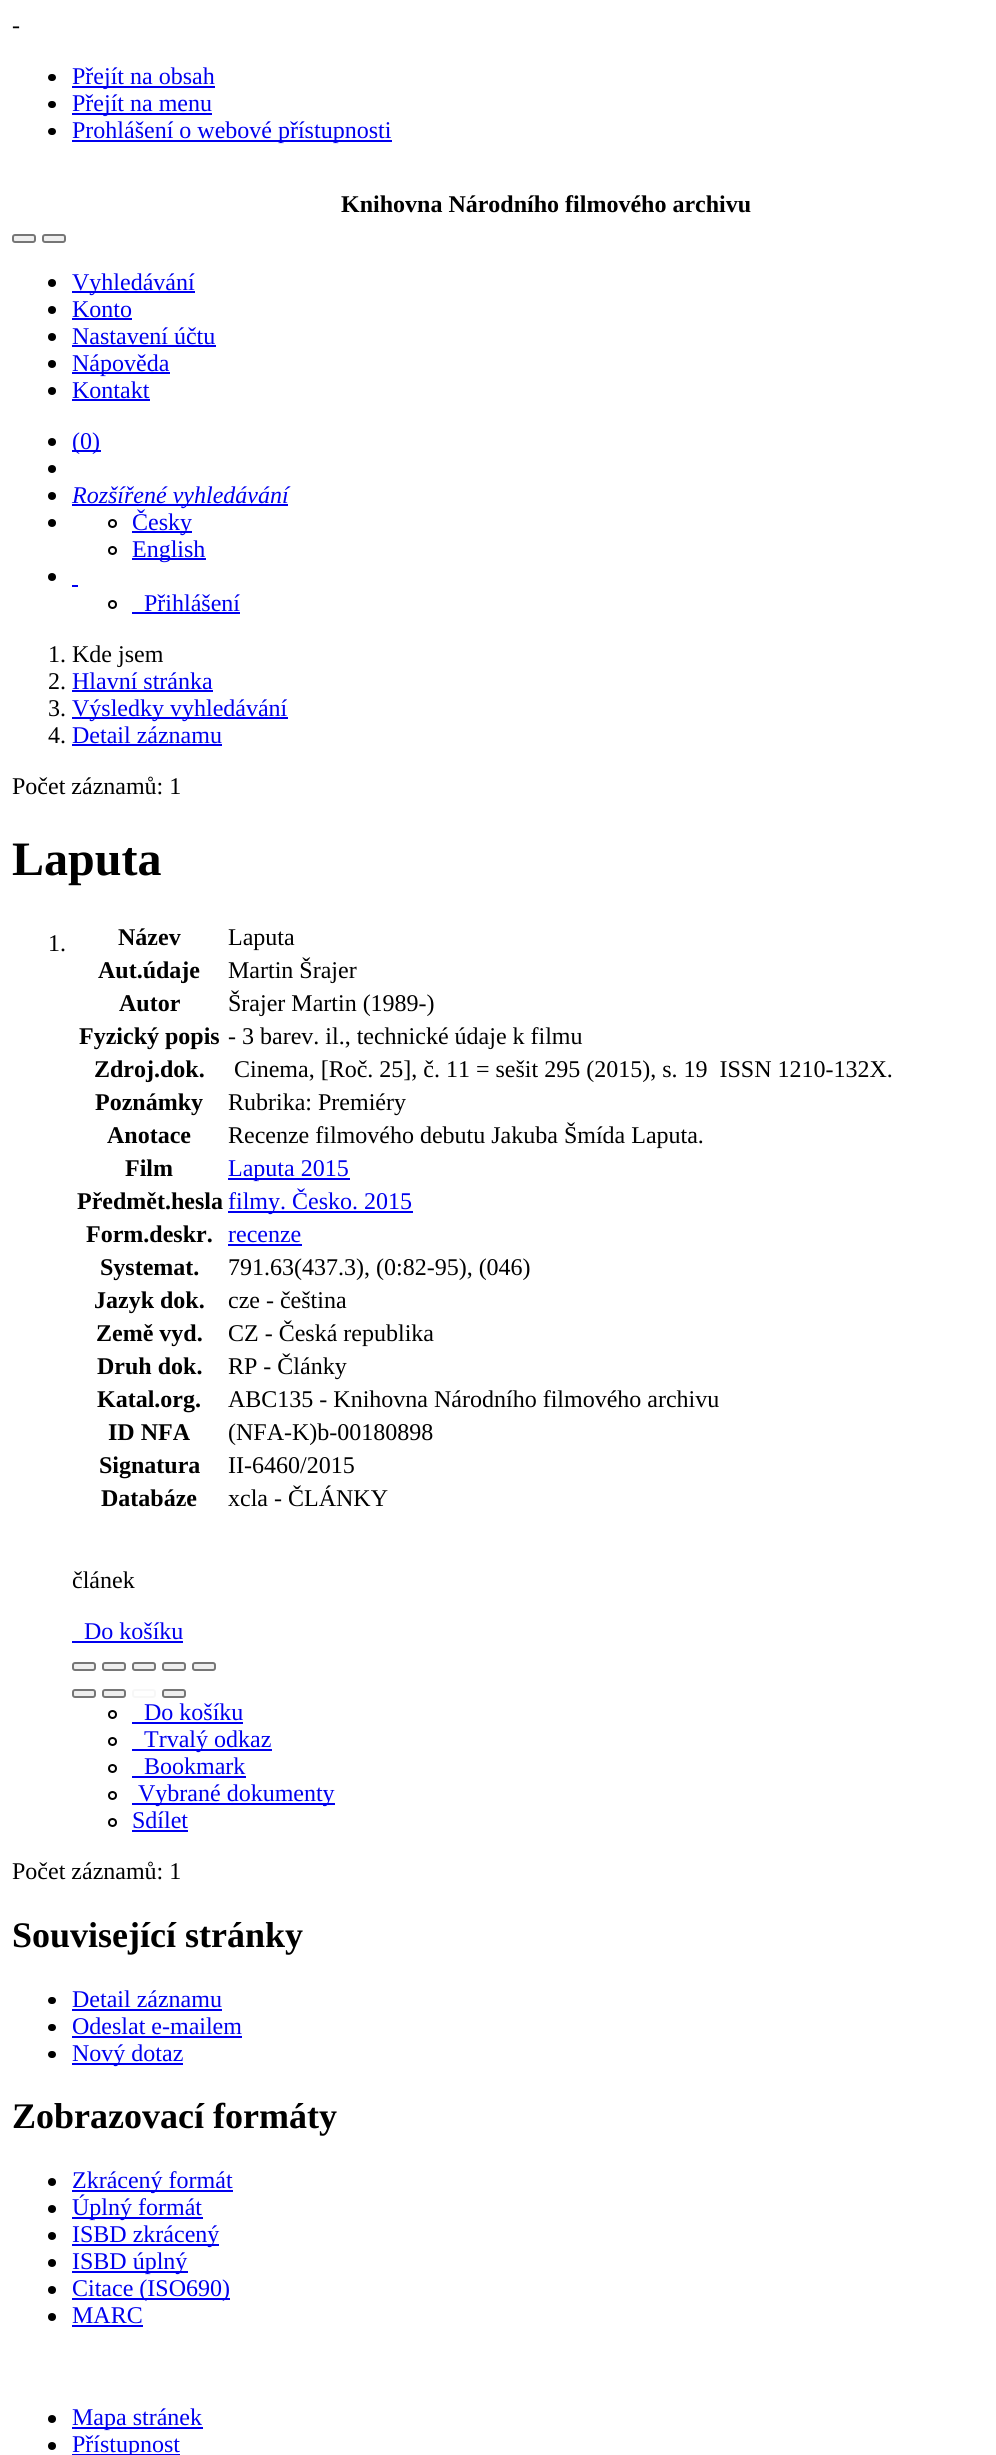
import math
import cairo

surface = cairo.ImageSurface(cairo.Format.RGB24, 996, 2455)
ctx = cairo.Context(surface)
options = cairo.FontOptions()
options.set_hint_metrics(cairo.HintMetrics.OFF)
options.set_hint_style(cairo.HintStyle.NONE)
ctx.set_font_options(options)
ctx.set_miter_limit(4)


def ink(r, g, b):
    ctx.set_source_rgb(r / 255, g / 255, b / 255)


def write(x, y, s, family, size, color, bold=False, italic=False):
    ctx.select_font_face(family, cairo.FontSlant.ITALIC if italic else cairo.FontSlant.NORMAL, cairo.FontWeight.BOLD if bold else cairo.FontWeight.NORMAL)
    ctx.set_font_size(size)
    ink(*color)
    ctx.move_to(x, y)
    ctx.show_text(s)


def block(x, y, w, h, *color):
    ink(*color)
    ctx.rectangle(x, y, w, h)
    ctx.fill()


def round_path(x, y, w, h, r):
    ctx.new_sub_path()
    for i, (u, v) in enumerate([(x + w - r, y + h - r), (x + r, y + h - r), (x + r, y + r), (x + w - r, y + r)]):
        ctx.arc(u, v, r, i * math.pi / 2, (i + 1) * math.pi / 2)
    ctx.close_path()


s1 = dict(family="Liberation Serif", size=24, color=(0, 0, 0))
s2 = dict(family="Liberation Serif", size=24, color=(0, 0, 238))
s3 = dict(family="Liberation Serif", size=24, color=(0, 0, 0), bold=True)
s4 = dict(family="Liberation Serif", size=24, color=(0, 0, 238), italic=True)
s5 = dict(family="Liberation Serif", size=48, color=(0, 0, 0), bold=True)
s6 = dict(family="Liberation Serif", size=36, color=(0, 0, 0), bold=True)

ink(255, 255, 255)
ctx.paint()
write(12, 33, "-", **s1)
round_path(48, 74, 8, 7, 3.5)
ctx.fill()
block(72, 86, 143, 2, 0, 0, 238)
write(72, 84, "Přejít na obsah", **s2)
ink(0, 0, 0)
round_path(48, 101, 8, 7, 3.5)
ctx.fill()
block(72, 113, 140, 2, 0, 0, 238)
write(72, 111, "Přejít na menu", **s2)
ink(0, 0, 0)
round_path(48, 128, 8, 7, 3.5)
ctx.fill()
block(72, 140, 320, 2, 0, 0, 238)
write(72, 138, "Prohlášení o webové přístupnosti", **s2)
write(341, 212, "Knihovna Národního filmového archivu", **s3)
ink(239, 239, 239)
round_path(13, 235, 22, 7, 2)
ctx.fill_preserve()
ink(118, 118, 118)
ctx.stroke()
ink(239, 239, 239)
round_path(43, 235, 22, 7, 2)
ctx.fill_preserve()
ink(118, 118, 118)
ctx.stroke()
ink(0, 0, 0)
ctx.arc(52, 283, 4, 0, 2 * math.pi)
ctx.fill()
block(72, 291, 123, 2, 0, 0, 238)
write(72, 290, "Vyhledávání", **s2)
ink(0, 0, 0)
ctx.new_path()
ctx.arc(52, 310, 4, 0, 2 * math.pi)
ctx.fill()
write(72, 317, "Konto", **s2)
block(72, 318, 60, 2, 0, 0, 238)
ink(0, 0, 0)
ctx.new_path()
ctx.arc(52, 337, 4, 0, 2 * math.pi)
ctx.fill()
write(72, 344, "Nastavení účtu", **s2)
block(72, 345, 144, 2, 0, 0, 238)
ink(0, 0, 0)
ctx.new_path()
ctx.arc(52, 364, 4, 0, 2 * math.pi)
ctx.fill()
block(72, 372, 98, 2, 0, 0, 238)
write(72, 371, "Nápověda", **s2)
ink(0, 0, 0)
ctx.new_path()
ctx.arc(52, 391, 4, 0, 2 * math.pi)
ctx.fill()
write(72, 398, "Kontakt", **s2)
block(72, 399, 78, 2, 0, 0, 238)
ink(0, 0, 0)
ctx.new_path()
ctx.arc(52, 442, 4, 0, 2 * math.pi)
ctx.fill()
block(72, 450, 29, 2, 0, 0, 238)
write(72, 449, "(0)", **s2)
ink(0, 0, 0)
ctx.new_path()
ctx.arc(52, 469, 4, 0, 2 * math.pi)
ctx.fill()
ctx.arc(52, 496, 4, 0, 2 * math.pi)
ctx.fill()
block(72, 504, 216, 2, 0, 0, 238)
write(72, 503, "Rozšířené vyhledávání", **s4)
ink(0, 0, 0)
ctx.new_path()
ctx.arc(52, 523, 4, 0, 2 * math.pi)
ctx.fill()
ctx.arc(112.5, 523.5, 3.5, 0, 2 * math.pi)
ctx.stroke()
block(132, 531, 60, 2, 0, 0, 238)
write(132, 530, "Česky", **s2)
ctx.new_path()
ctx.arc(112.5, 550.5, 3.5, 0, 2 * math.pi)
ink(0, 0, 0)
ctx.stroke()
block(132, 558, 74, 2, 0, 0, 238)
write(132, 557, "English", **s2)
ink(0, 0, 0)
ctx.new_path()
ctx.arc(52, 577, 4, 0, 2 * math.pi)
ctx.fill()
block(72, 585, 6, 2, 0, 0, 238)
ctx.arc(112.5, 604.5, 3.5, 0, 2 * math.pi)
ink(0, 0, 0)
ctx.stroke()
write(144, 611, "Přihlášení", **s2)
block(132, 612, 108, 2, 0, 0, 238)
write(48, 662, "1. Kde jsem", **s1)
write(48, 689, "2.", **s1)
write(72, 689, "Hlavní stránka", **s2)
block(72, 690, 141, 2, 0, 0, 238)
write(48, 716, "3.", **s1)
block(72, 717, 216, 2, 0, 0, 238)
write(72, 716, "Výsledky vyhledávání", **s2)
write(48, 743, "4.", **s1)
write(72, 743, "Detail záznamu", **s2)
block(72, 744, 150, 2, 0, 0, 238)
write(12, 794, "Počet záznamů: 1", **s1)
write(12, 875, "Laputa", **s5)
write(48, 951, "1.", **s1)
write(118, 945, "Název", **s3)
write(228, 945, "Laputa", **s1)
write(98, 978, "Aut.údaje", **s3)
write(228, 978, "Martin Šrajer", **s1)
write(119, 1011, "Autor", **s3)
write(228, 1011, "Šrajer Martin (1989-)", **s1)
write(79, 1044, "Fyzický popis", **s3)
write(228, 1044, "- 3 barev. il., technické údaje k filmu", **s1)
write(94, 1077, "Zdroj.dok.", **s3)
write(234, 1077, "Cinema, [Roč. 25], č. 11 = sešit 295 (2015), s. 19  ISSN 1210-132X.", **s1)
write(95, 1110, "Poznámky", **s3)
write(228, 1110, "Rubrika: Premiéry", **s1)
write(107, 1143, "Anotace", **s3)
write(228, 1143, "Recenze filmového debutu Jakuba Šmída Laputa.", **s1)
write(125, 1176, "Film", **s3)
block(228, 1178, 122, 2, 0, 0, 238)
write(228, 1176, "Laputa 2015", **s2)
write(77, 1209, "Předmět.hesla", **s3)
block(228, 1211, 185, 2, 0, 0, 238)
write(228, 1209, "filmy. Česko. 2015", **s2)
write(86, 1242, "Form.deskr.", **s3)
write(228, 1242, "recenze", **s2)
block(228, 1244, 74, 2, 0, 0, 238)
write(100, 1275, "Systemat.", **s3)
write(228, 1275, "791.63(437.3), (0:82-95), (046)", **s1)
write(94, 1308, "Jazyk dok.", **s3)
write(228, 1308, "cze - čeština", **s1)
write(96, 1341, "Země vyd.", **s3)
write(228, 1341, "CZ - Česká republika", **s1)
write(97, 1374, "Druh dok.", **s3)
write(228, 1374, "RP - Články", **s1)
write(97, 1407, "Katal.org.", **s3)
write(228, 1407, "ABC135 - Knihovna Národního filmového archivu", **s1)
write(108, 1440, "ID NFA", **s3)
write(228, 1440, "(NFA-K)b-00180898", **s1)
write(99, 1473, "Signatura", **s3)
write(228, 1473, "II-6460/2015", **s1)
write(101, 1506, "Databáze", **s3)
write(228, 1506, "xcla - ČLÁNKY", **s1)
write(72, 1588, "článek", **s1)
write(84, 1639, "Do košíku", **s2)
block(72, 1641, 111, 2, 0, 0, 238)
ink(239, 239, 239)
round_path(73, 1663, 22, 7, 2)
ctx.fill_preserve()
ink(118, 118, 118)
ctx.stroke()
ink(239, 239, 239)
round_path(103, 1663, 22, 7, 2)
ctx.fill_preserve()
ink(118, 118, 118)
ctx.stroke()
ink(239, 239, 239)
round_path(133, 1663, 22, 7, 2)
ctx.fill_preserve()
ink(118, 118, 118)
ctx.stroke()
ink(239, 239, 239)
round_path(163, 1663, 22, 7, 2)
ctx.fill_preserve()
ink(118, 118, 118)
ctx.stroke()
ink(239, 239, 239)
round_path(193, 1663, 22, 7, 2)
ctx.fill_preserve()
ink(118, 118, 118)
ctx.stroke()
ink(239, 239, 239)
round_path(73, 1690, 22, 7, 2)
ctx.fill_preserve()
ink(118, 118, 118)
ctx.stroke()
ink(239, 239, 239)
round_path(103, 1690, 22, 7, 2)
ctx.fill_preserve()
ink(118, 118, 118)
ctx.stroke()
round_path(133, 1690, 22, 7, 2)
ink(247, 247, 247)
ctx.stroke()
ink(239, 239, 239)
round_path(163, 1690, 22, 7, 2)
ctx.fill_preserve()
ink(118, 118, 118)
ctx.stroke()
ctx.arc(112.5, 1714.5, 3.5, 0, 2 * math.pi)
ink(0, 0, 0)
ctx.stroke()
write(144, 1720, "Do košíku", **s2)
block(132, 1722, 111, 2, 0, 0, 238)
ctx.new_path()
ctx.arc(112.5, 1741.5, 3.5, 0, 2 * math.pi)
ink(0, 0, 0)
ctx.stroke()
block(132, 1749, 140, 2, 0, 0, 238)
write(144, 1747, "Trvalý odkaz", **s2)
ctx.new_path()
ctx.arc(112.5, 1768.5, 3.5, 0, 2 * math.pi)
ink(0, 0, 0)
ctx.stroke()
write(144, 1774, "Bookmark", **s2)
block(132, 1776, 114, 2, 0, 0, 238)
ctx.new_path()
ctx.arc(112.5, 1795.5, 3.5, 0, 2 * math.pi)
ink(0, 0, 0)
ctx.stroke()
block(132, 1803, 203, 2, 0, 0, 238)
write(138, 1801, "Vybrané dokumenty", **s2)
ctx.new_path()
ctx.arc(112.5, 1822.5, 3.5, 0, 2 * math.pi)
ink(0, 0, 0)
ctx.stroke()
write(132, 1828, "Sdílet", **s2)
block(132, 1830, 56, 2, 0, 0, 238)
write(12, 1879, "Počet záznamů: 1", **s1)
write(12, 1947, "Související stránky", **s6)
round_path(48, 1997, 8, 7, 3.5)
ctx.fill()
write(72, 2007, "Detail záznamu", **s2)
block(72, 2009, 150, 2, 0, 0, 238)
ink(0, 0, 0)
round_path(48, 2024, 8, 7, 3.5)
ctx.fill()
write(72, 2034, "Odeslat e-mailem", **s2)
block(72, 2036, 170, 2, 0, 0, 238)
ink(0, 0, 0)
round_path(48, 2051, 8, 7, 3.5)
ctx.fill()
block(72, 2063, 111, 2, 0, 0, 238)
write(72, 2061, "Nový dotaz", **s2)
write(12, 2128, "Zobrazovací formáty", **s6)
ctx.new_path()
ctx.arc(52, 2182, 4, 0, 2 * math.pi)
ctx.fill()
block(72, 2190, 161, 2, 0, 0, 238)
write(72, 2188, "Zkrácený formát", **s2)
ink(0, 0, 0)
ctx.new_path()
ctx.arc(52, 2209, 4, 0, 2 * math.pi)
ctx.fill()
block(72, 2217, 131, 2, 0, 0, 238)
write(72, 2215, "Úplný formát", **s2)
ink(0, 0, 0)
ctx.new_path()
ctx.arc(52, 2236, 4, 0, 2 * math.pi)
ctx.fill()
block(72, 2244, 147, 2, 0, 0, 238)
write(72, 2242, "ISBD zkrácený", **s2)
ink(0, 0, 0)
ctx.new_path()
ctx.arc(52, 2263, 4, 0, 2 * math.pi)
ctx.fill()
block(72, 2271, 116, 2, 0, 0, 238)
write(72, 2269, "ISBD úplný", **s2)
ink(0, 0, 0)
ctx.new_path()
ctx.arc(52, 2290, 4, 0, 2 * math.pi)
ctx.fill()
block(72, 2298, 158, 2, 0, 0, 238)
write(72, 2296, "Citace (ISO690)", **s2)
ink(0, 0, 0)
ctx.new_path()
ctx.arc(52, 2317, 4, 0, 2 * math.pi)
ctx.fill()
write(72, 2323, "MARC", **s2)
block(72, 2325, 71, 2, 0, 0, 238)
ink(0, 0, 0)
ctx.new_path()
ctx.arc(52, 2419, 4, 0, 2 * math.pi)
ctx.fill()
block(72, 2427, 131, 2, 0, 0, 238)
write(72, 2425, "Mapa stránek", **s2)
ink(0, 0, 0)
ctx.new_path()
ctx.arc(52, 2446, 4, 0, 2 * math.pi)
ctx.fill()
block(72, 2454, 108, 1, 0, 0, 238)
write(72, 2452, "Přístupnost", **s2)
surface.write_to_png("screenshot.png")
